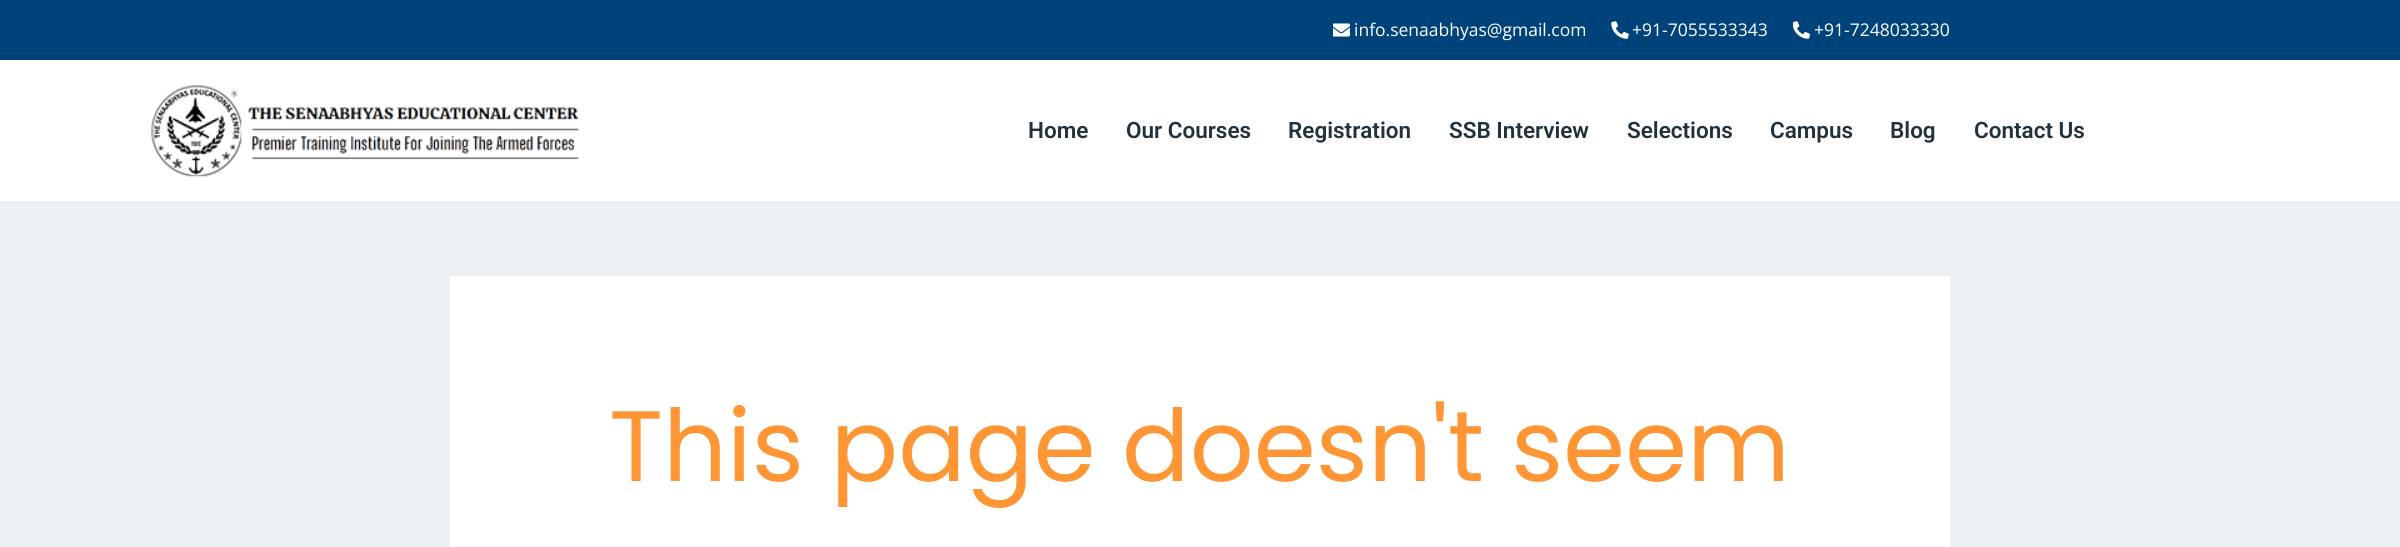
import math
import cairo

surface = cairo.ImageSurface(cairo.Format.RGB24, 2400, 547)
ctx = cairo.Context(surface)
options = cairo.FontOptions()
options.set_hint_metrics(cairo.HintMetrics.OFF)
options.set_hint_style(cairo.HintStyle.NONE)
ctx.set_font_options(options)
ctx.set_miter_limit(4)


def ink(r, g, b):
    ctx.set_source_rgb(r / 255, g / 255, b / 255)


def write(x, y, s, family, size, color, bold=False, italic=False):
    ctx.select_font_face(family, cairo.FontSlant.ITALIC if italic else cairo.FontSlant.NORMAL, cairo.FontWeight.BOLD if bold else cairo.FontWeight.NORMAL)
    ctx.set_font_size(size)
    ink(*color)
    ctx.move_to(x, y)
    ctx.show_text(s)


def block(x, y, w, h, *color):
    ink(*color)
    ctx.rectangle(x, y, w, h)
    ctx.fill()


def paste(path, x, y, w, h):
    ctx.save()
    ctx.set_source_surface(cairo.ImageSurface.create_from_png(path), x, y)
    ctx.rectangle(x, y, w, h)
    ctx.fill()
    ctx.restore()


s1 = dict(family="Open Sans", size=17.5, color=(255, 255, 255))
s2 = dict(family="Roboto SemiBold", size=22.5, color=(34, 50, 61))
s3 = dict(family="Poppins", size=100, color=(255, 150, 53))

ink(236, 240, 242)
ctx.paint()
block(0, 0, 2400, 60, 0, 67, 122)
paste("pic1.png", 1333, 23, 17, 14)
write(1354, 36, "info.senaabhyas@gmail.com", **s1)
paste("pic2.png", 1611, 21, 18, 18)
write(1632, 36, "+91-7055533343", **s1)
paste("pic3.png", 1793, 21, 17, 18)
write(1814, 36, "+91-7248033330", **s1)
block(0, 60, 2400, 141, 255, 255, 255)
paste("pic4.png", 151, 85, 428, 92)
write(1028, 138, "Home", **s2)
write(1126, 138, "Our Courses", **s2)
write(1288, 138, "Registration", **s2)
write(1449, 138, "SSB Interview", **s2)
write(1627, 138, "Selections", **s2)
write(1770, 138, "Campus", **s2)
write(1890, 138, "Blog", **s2)
write(1974, 138, "Contact Us", **s2)
block(450, 276, 1500, 271, 255, 255, 255)
write(609, 481, "This page doesn't seem", **s3)
surface.write_to_png("screenshot.png")
